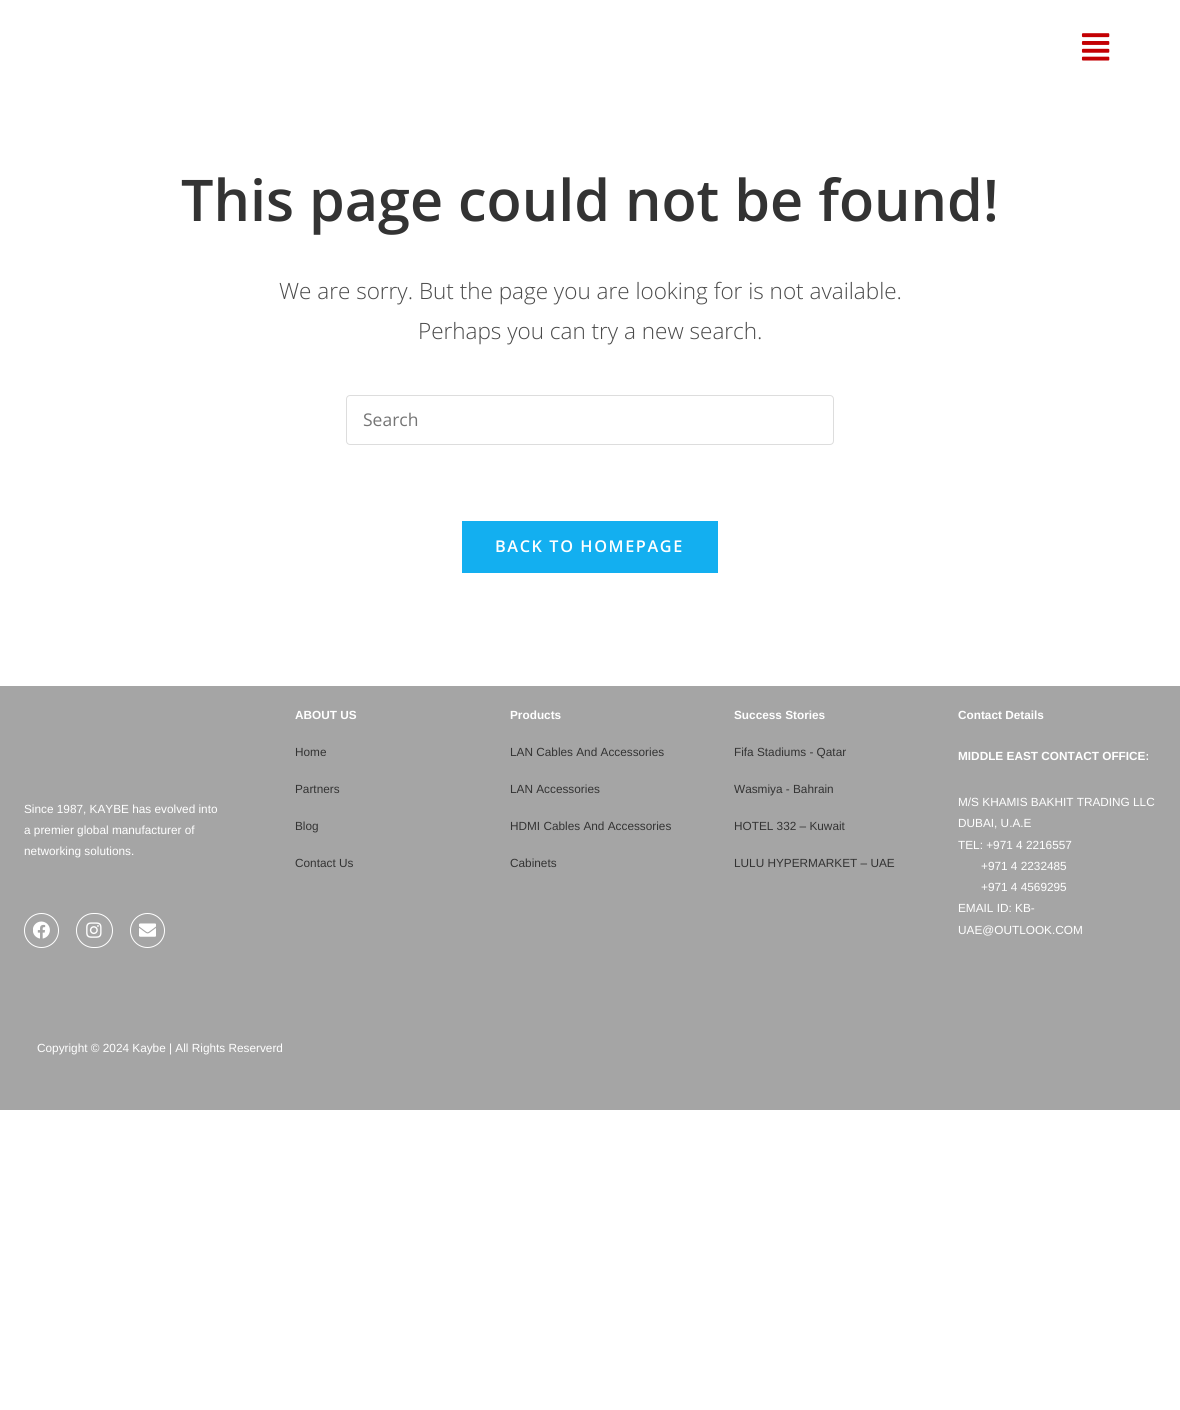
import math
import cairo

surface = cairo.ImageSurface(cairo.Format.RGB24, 1180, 1410)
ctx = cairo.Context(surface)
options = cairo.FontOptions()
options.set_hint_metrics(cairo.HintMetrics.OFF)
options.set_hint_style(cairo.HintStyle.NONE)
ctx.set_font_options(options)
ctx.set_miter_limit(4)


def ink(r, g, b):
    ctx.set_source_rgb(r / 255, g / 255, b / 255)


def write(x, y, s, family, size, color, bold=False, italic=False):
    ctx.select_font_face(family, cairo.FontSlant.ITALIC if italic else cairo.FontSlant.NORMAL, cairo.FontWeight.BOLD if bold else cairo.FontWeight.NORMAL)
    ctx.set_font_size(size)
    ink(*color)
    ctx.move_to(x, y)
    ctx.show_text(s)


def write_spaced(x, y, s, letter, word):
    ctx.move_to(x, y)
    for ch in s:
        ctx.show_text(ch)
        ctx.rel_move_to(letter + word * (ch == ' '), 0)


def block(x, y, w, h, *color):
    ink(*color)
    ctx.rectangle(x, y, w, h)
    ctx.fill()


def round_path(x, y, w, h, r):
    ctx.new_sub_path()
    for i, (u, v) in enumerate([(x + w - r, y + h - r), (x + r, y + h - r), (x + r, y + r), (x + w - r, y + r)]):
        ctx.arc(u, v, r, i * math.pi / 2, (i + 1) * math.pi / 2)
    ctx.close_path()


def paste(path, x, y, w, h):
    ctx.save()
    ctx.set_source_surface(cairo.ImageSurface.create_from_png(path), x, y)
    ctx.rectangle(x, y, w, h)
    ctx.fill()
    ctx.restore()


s1 = dict(family="Open Sans SemiBold", size=57.5, color=(51, 51, 51))
s2 = dict(family="Open Sans Light", size=22.5, color=(74, 74, 74))
s3 = dict(family="Open Sans", size=17.5, color=(117, 117, 117))
s4 = dict(family="Liberation Sans", size=11.8, color=(255, 255, 255))
s5 = dict(family="Liberation Sans", size=11.8, color=(255, 255, 255), bold=True)
s6 = dict(family="Liberation Sans", size=11.8, color=(51, 51, 51))

ink(255, 255, 255)
ctx.paint()
paste("pic1.png", 1081, 33, 29, 28)
write(181, 221, "This page could not be found!", **s1)
write(279, 299, "We are sorry. But the page you are looking for is not available.", **s2)
write(418, 339, "Perhaps you can try a new search.", **s2)
round_path(346.5, 395.5, 487, 49, 3.5)
ink(221, 221, 221)
ctx.set_line_width(1)
ctx.stroke()
write(363, 426, "Search", **s3)
block(462, 521, 256, 52, 19, 175, 240)
ctx.select_font_face("Open Sans SemiBold")
ctx.set_font_size(16.25)
ink(255, 255, 255)
write_spaced(495, 552, "BACK TO HOMEPAGE", 1.6, 0)
block(0, 686, 1180, 424, 165, 165, 165)
write(24, 813, "Since 1987, KAYBE has evolved into", **s4)
write(24, 834, "a premier global manufacturer of", **s4)
write(24, 855, "networking solutions.", **s4)
ctx.new_path()
ctx.arc(41.5, 930.5, 17, 0, 2 * math.pi)
ctx.stroke()
paste("pic2.png", 33, 921, 17, 18)
round_path(76.5, 913.5, 36, 34, 17)
ctx.stroke()
paste("pic3.png", 86, 922, 16, 16)
ctx.arc(147.5, 930.5, 17, 0, 2 * math.pi)
ctx.stroke()
paste("pic4.png", 139, 923, 17, 14)
write(295, 719, "ABOUT US", **s5)
write(295, 756, "Home", **s6)
write(295, 793, "Partners", **s6)
write(295, 830, "Blog", **s6)
write(295, 867, "Contact Us", **s6)
write(510, 719, "Products", **s5)
write(510, 756, "LAN Cables And Accessories", **s6)
write(510, 793, "LAN Accessories", **s6)
write(510, 830, "HDMI Cables And Accessories", **s6)
write(510, 867, "Cabinets", **s6)
write(734, 719, "Success Stories", **s5)
write(734, 756, "Fifa Stadiums - Qatar", **s6)
write(734, 793, "Wasmiya - Bahrain", **s6)
write(734, 830, "HOTEL 332 – Kuwait", **s6)
write(734, 867, "LULU HYPERMARKET – UAE", **s6)
write(958, 719, "Contact Details", **s5)
write(958, 760, "MIDDLE EAST CONTACT OFFICE:", **s5)
write(958, 806, "M/S KHAMIS BAKHIT TRADING LLC", **s4)
write(958, 827, "DUBAI, U.A.E", **s4)
write(958, 849, "TEL: +971 4 2216557", **s4)
write(981, 870, "+971 4 2232485", **s4)
write(981, 891, "+971 4 4569295", **s4)
write(958, 912, "EMAIL ID: KB-", **s4)
write(958, 934, "UAE@OUTLOOK.COM", **s4)
write(37, 1052, "Copyright © 2024 Kaybe | All Rights Reserverd", **s4)
surface.write_to_png("screenshot.png")
